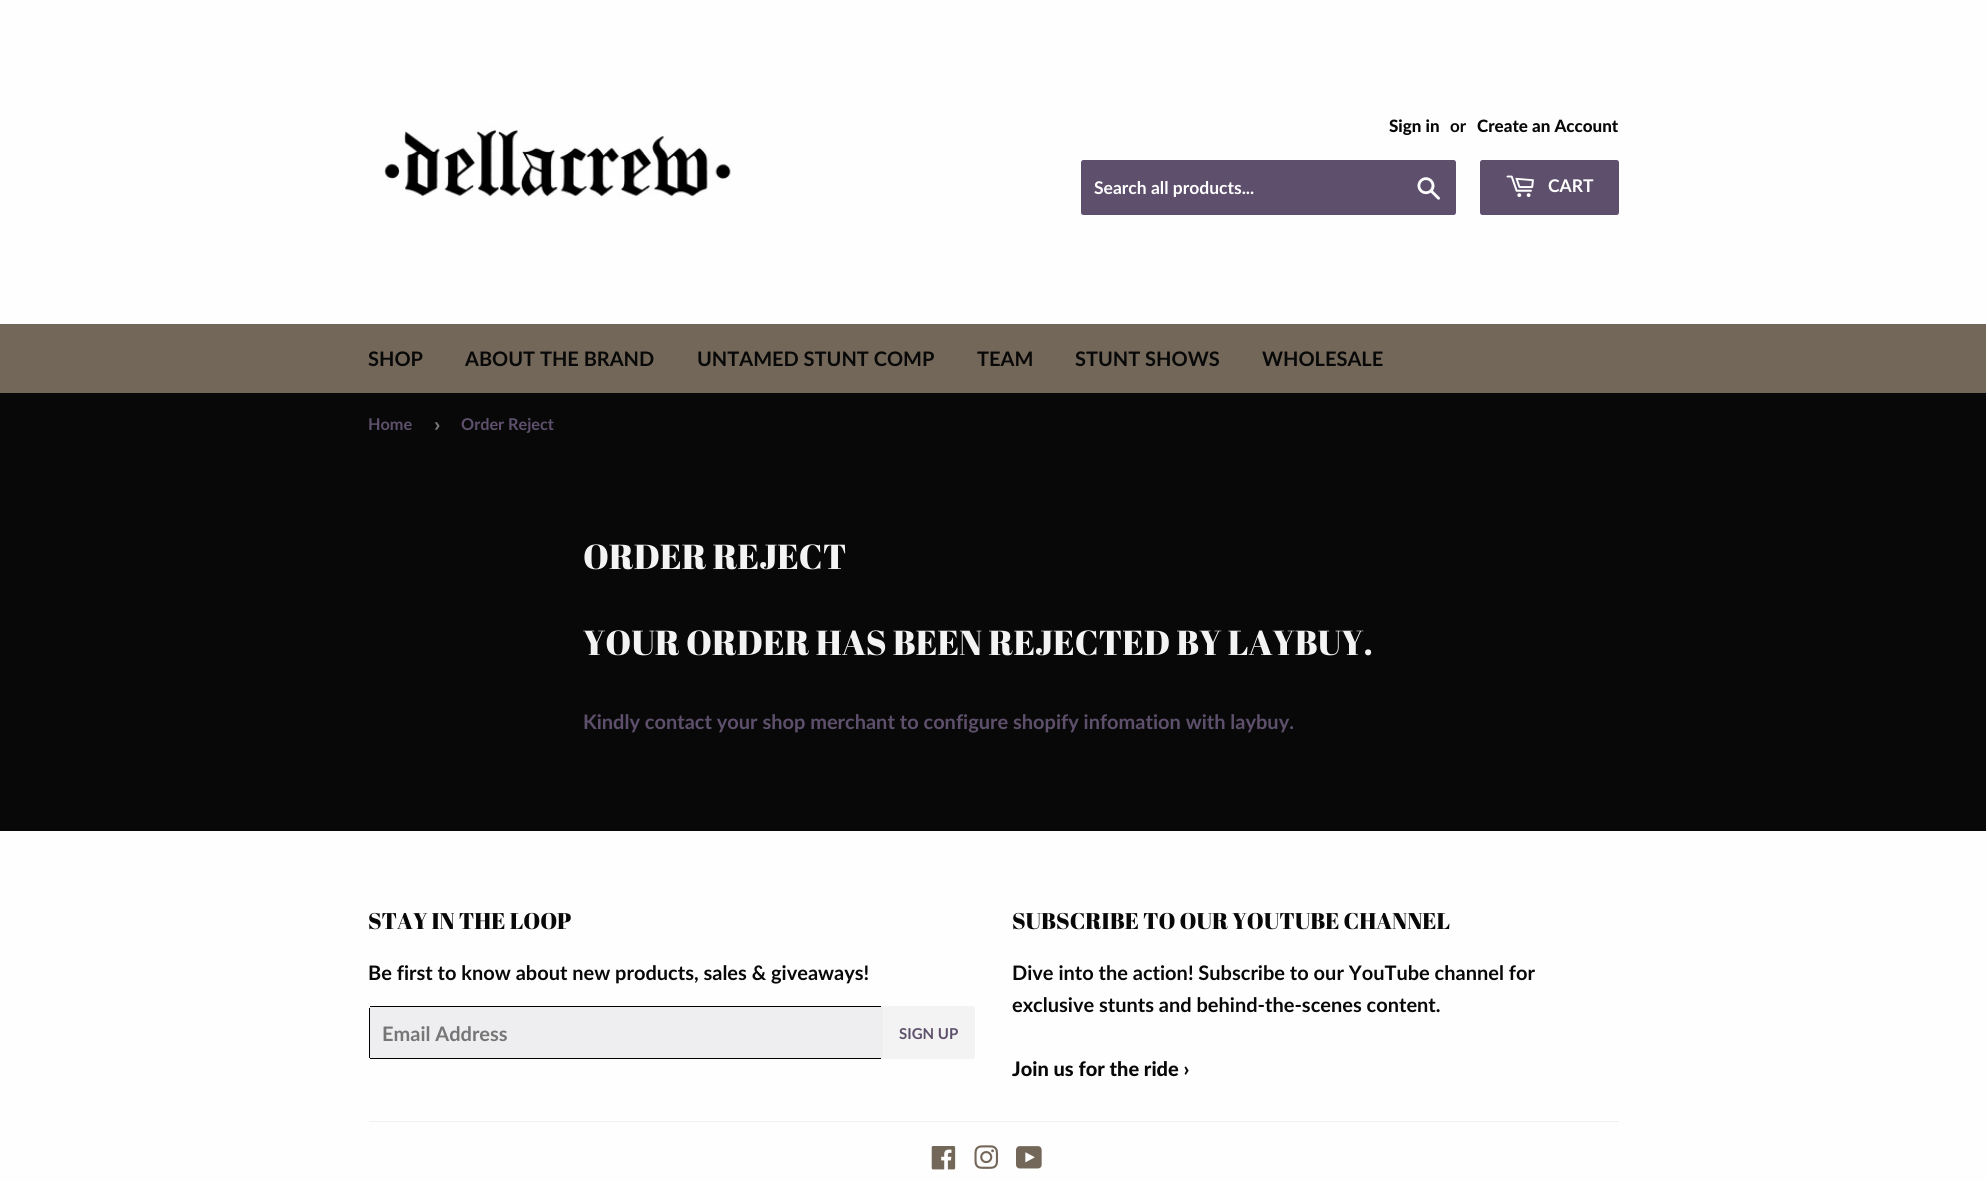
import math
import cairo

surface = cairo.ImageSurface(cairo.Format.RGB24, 1986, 1181)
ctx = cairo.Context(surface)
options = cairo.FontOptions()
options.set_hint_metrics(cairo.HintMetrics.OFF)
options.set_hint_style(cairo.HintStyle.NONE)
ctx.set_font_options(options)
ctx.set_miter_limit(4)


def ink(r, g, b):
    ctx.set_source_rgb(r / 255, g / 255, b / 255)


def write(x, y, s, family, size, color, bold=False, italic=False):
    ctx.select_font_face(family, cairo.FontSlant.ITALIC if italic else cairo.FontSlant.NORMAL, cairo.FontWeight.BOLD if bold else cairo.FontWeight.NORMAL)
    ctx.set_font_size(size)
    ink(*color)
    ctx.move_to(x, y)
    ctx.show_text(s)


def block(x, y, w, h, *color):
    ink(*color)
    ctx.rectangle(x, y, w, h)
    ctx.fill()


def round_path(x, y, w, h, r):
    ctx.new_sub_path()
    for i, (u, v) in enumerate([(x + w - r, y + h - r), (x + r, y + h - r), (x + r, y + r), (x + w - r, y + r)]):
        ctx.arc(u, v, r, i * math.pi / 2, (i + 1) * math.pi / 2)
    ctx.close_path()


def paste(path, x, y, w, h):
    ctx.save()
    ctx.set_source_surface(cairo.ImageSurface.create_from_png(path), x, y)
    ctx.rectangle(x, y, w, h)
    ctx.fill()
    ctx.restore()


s1 = dict(family="Lato Black", size=17, color=(8, 8, 8))
s2 = dict(family="Lato", size=17, color=(8, 8, 8), bold=True)
s3 = dict(family="Lato", size=17.5, color=(255, 255, 255), bold=True)
s4 = dict(family="Lato", size=20, color=(8, 8, 8), bold=True)
s5 = dict(family="Lato", size=16.25, color=(94, 80, 108), bold=True)
s6 = dict(family="Liberation Sans", size=19, color=(118, 118, 118), bold=True)
s7 = dict(family="Abril Fatface", size=34.7, color=(243, 243, 243))
s8 = dict(family="Lato", size=20, color=(94, 80, 108), bold=True)
s9 = dict(family="Abril Fatface", size=22.7, color=(8, 8, 8))
s10 = dict(family="Lato", size=20, color=(118, 118, 118), bold=True)
s11 = dict(family="Lato", size=15, color=(94, 80, 108), bold=True)
s12 = dict(family="Lato Black", size=20, color=(8, 8, 8))

ink(8, 8, 8)
ctx.paint()
block(0, 0, 1986, 324, 254, 254, 254)
paste("pic1.png", 384, 127, 347, 71)
write(1389, 132, "Sign in", **s1)
write(1450, 132, "or", **s2)
write(1477, 132, "Create an Account", **s1)
ink(94, 80, 108)
round_path(1081, 160, 375, 55, 2.5)
ctx.fill()
write(1094, 194, "Search all products...", **s3)
paste("pic2.png", 1417, 177, 23, 23)
ink(94, 80, 108)
round_path(1480, 160, 139, 55, 2.5)
ctx.fill()
paste("pic3.png", 1506, 175, 28, 23)
write(1548, 192, "CART", **s3)
block(0, 324, 1986, 69, 115, 103, 89)
write(368, 366, "SHOP", **s4)
write(465, 366, "ABOUT THE BRAND", **s4)
write(697, 366, "UNTAMED STUNT COMP", **s4)
write(977, 366, "TEAM", **s4)
write(1075, 366, "STUNT SHOWS", **s4)
write(1262, 366, "WHOLESALE", **s4)
write(368, 430, "Home", **s5)
write(434, 431, "›", **s6)
write(461, 430, "Order Reject", **s5)
write(583, 569, "ORDER REJECT", **s7)
write(583, 655, "YOUR ORDER HAS BEEN REJECTED BY LAYBUY.", **s7)
write(583, 729, "Kindly contact your shop merchant to configure shopify infomation with laybuy.", **s8)
block(0, 831, 1986, 350, 254, 254, 254)
write(368, 929, "STAY IN THE LOOP", **s9)
write(368, 980, "Be first to know about new products, sales & giveaways!", **s4)
ink(238, 237, 239)
round_path(369, 1006, 514, 53, 2.5)
ctx.fill()
block(370, 1006, 511, 1, 0, 0, 0)
block(370, 1058, 511, 1, 0, 0, 0)
block(369, 1008, 1, 50, 0, 0, 0)
write(382, 1041, "Email Address", **s10)
ink(243, 243, 243)
ctx.new_path()
ctx.move_to(883, 1006)
ctx.line_to(972.5, 1006)
ctx.curve_to(974, 1006, 975, 1007, 975, 1008.5)
ctx.line_to(975, 1056.5)
ctx.curve_to(975, 1058, 974, 1059, 972.5, 1059)
ctx.line_to(883, 1059)
ctx.close_path()
ctx.fill()
write(899, 1039, "SIGN UP", **s11)
write(1012, 929, "SUBSCRIBE TO OUR YOUTUBE CHANNEL", **s9)
write(1012, 980, "Dive into the action! Subscribe to our YouTube channel for", **s4)
write(1012, 1012, "exclusive stunts and behind-the-scenes content.", **s4)
write(1012, 1076, "Join us for the ride ›", **s12)
block(369, 1121, 1250, 1, 241, 241, 241)
paste("pic4.png", 931, 1146, 25, 24)
paste("pic5.png", 974, 1145, 25, 24)
paste("pic6.png", 1016, 1146, 26, 23)
surface.write_to_png("screenshot.png")
